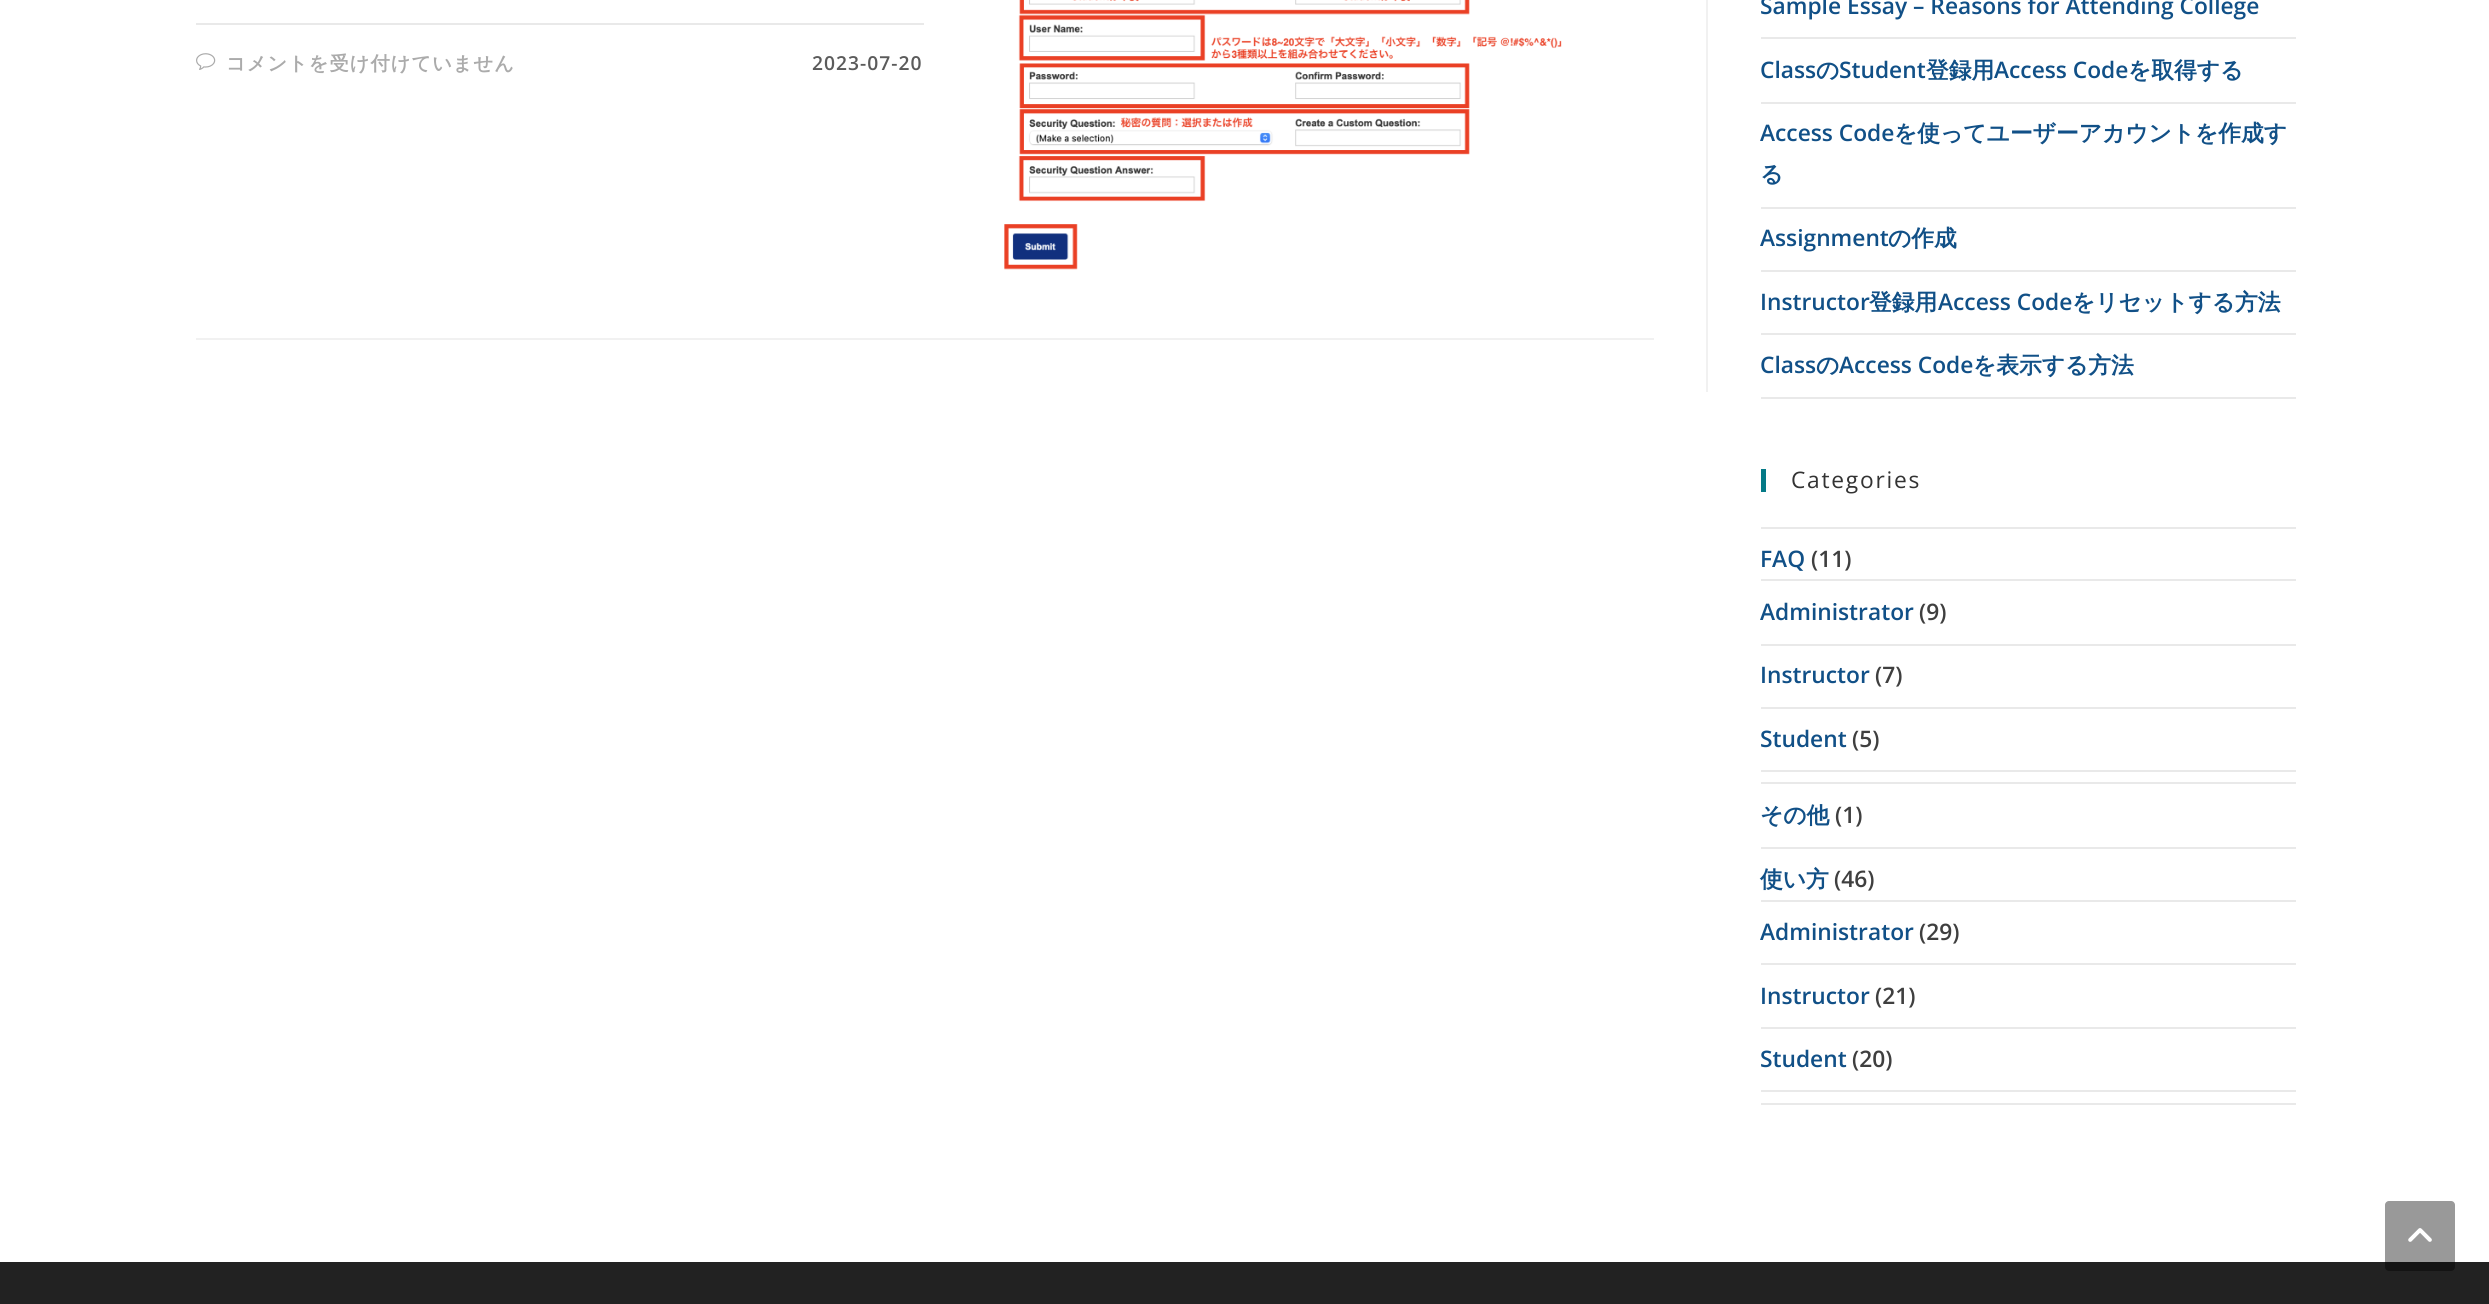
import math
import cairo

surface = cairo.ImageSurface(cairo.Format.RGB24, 2489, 1304)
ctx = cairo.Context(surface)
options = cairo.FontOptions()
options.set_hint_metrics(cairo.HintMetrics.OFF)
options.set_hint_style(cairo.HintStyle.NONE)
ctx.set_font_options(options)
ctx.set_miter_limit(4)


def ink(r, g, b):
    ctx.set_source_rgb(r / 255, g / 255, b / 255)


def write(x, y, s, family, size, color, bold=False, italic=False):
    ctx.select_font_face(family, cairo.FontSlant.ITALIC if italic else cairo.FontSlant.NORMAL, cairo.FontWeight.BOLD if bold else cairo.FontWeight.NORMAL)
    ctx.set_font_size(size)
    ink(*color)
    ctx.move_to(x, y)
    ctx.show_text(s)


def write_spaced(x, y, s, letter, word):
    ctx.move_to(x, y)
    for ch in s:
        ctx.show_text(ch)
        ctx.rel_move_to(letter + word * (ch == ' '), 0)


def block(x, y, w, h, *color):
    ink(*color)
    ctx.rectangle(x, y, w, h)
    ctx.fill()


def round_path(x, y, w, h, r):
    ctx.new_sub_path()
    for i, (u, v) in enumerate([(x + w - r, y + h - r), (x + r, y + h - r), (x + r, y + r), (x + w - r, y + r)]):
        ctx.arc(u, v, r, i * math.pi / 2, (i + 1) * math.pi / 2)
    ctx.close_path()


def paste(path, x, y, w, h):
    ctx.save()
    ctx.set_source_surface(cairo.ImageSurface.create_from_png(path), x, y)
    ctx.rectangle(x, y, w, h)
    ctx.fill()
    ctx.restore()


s1 = dict(family="Open Sans SemiBold", size=22.75, color=(17, 80, 135))
s2 = dict(family="WenQuanYi Zen Hei", size=22.75, color=(17, 80, 135), bold=True)
s3 = dict(family="Open Sans SemiBold", size=22.75, color=(63, 63, 63))

ink(255, 255, 255)
ctx.paint()
block(1706, 0, 2, 392, 241, 241, 241)
block(196, 338, 1458, 2, 241, 241, 241)
block(196, 23, 728, 2, 233, 233, 233)
paste("pic1.png", 196, 53, 20, 17)
ctx.select_font_face("WenQuanYi Zen Hei", cairo.FontSlant.NORMAL, cairo.FontWeight.BOLD)
ctx.set_font_size(19.25)
ink(171, 171, 171)
write_spaced(226, 70, "コメントを受け付けていません", 1, 0)
ctx.select_font_face("Open Sans SemiBold")
ink(91, 91, 91)
write_spaced(812, 70, "2023-07-20", 1, 0)
paste("pic2.png", 1004, 0, 558, 270)
block(1761, 37, 535, 2, 233, 233, 233)
write(1760, 14, "Sample Essay – Reasons for Attending College", **s1)
block(1761, 102, 535, 2, 233, 233, 233)
write(1760, 78, "Class", **s1)
write(1816, 78, "の", **s2)
write(1839, 78, "Student", **s1)
write(1926, 78, "登録用", **s2)
write(1994, 78, "Access Code", **s1)
write(2128, 78, "を取得する", **s2)
block(1761, 207, 535, 2, 233, 233, 233)
write(1760, 141, "Access Code", **s1)
write(1894, 141, "を使ってユーザーアカウントを作成す", **s2)
write(1760, 182, "る", **s2)
block(1761, 270, 535, 2, 233, 233, 233)
write(1760, 246, "Assignment", **s1)
write(1888, 246, "の作成", **s2)
block(1761, 333, 535, 2, 233, 233, 233)
write(1760, 310, "Instructor", **s1)
write(1869, 310, "登録用", **s2)
write(1938, 310, "Access Code", **s1)
write(2072, 310, "をリセットする方法", **s2)
block(1761, 397, 535, 2, 233, 233, 233)
write(1760, 373, "Class", **s1)
write(1816, 373, "の", **s2)
write(1839, 373, "Access Code", **s1)
write(1973, 373, "を表示する方法", **s2)
block(1761, 469, 5, 23, 5, 122, 135)
ctx.select_font_face("Open Sans")
ink(51, 51, 51)
write_spaced(1791, 488, "Categories", 1.75, 0)
block(1761, 527, 535, 2, 233, 233, 233)
block(1761, 782, 535, 2, 233, 233, 233)
write(1760, 567, "FAQ", **s1)
write(1811, 567, "(11)", **s3)
block(1761, 579, 535, 2, 233, 233, 233)
block(1761, 644, 535, 2, 233, 233, 233)
write(1760, 620, "Administrator", **s1)
write(1919, 620, "(9)", **s3)
block(1761, 707, 535, 2, 233, 233, 233)
write(1760, 683, "Instructor", **s1)
write(1875, 683, "(7)", **s3)
block(1761, 770, 535, 2, 233, 233, 233)
write(1760, 747, "Student", **s1)
write(1852, 747, "(5)", **s3)
block(1761, 847, 535, 2, 233, 233, 233)
write(1760, 823, "その他", **s2)
write(1835, 823, "(1)", **s3)
block(1761, 1103, 535, 2, 233, 233, 233)
write(1760, 887, "使い方", **s2)
write(1834, 887, "(46)", **s3)
block(1761, 900, 535, 2, 233, 233, 233)
block(1761, 963, 535, 2, 233, 233, 233)
write(1760, 940, "Administrator", **s1)
write(1919, 940, "(29)", **s3)
block(1761, 1027, 535, 2, 233, 233, 233)
write(1760, 1004, "Instructor", **s1)
write(1875, 1004, "(21)", **s3)
block(1761, 1090, 535, 2, 233, 233, 233)
write(1760, 1067, "Student", **s1)
write(1852, 1067, "(20)", **s3)
block(0, 1262, 2489, 42, 34, 34, 34)
ctx.set_source_rgba(0, 0, 0, 0.4)
round_path(2385, 1201, 70, 70, 4)
ctx.fill()
paste("pic3.png", 2408, 1228, 24, 14)
surface.write_to_png("screenshot.png")
